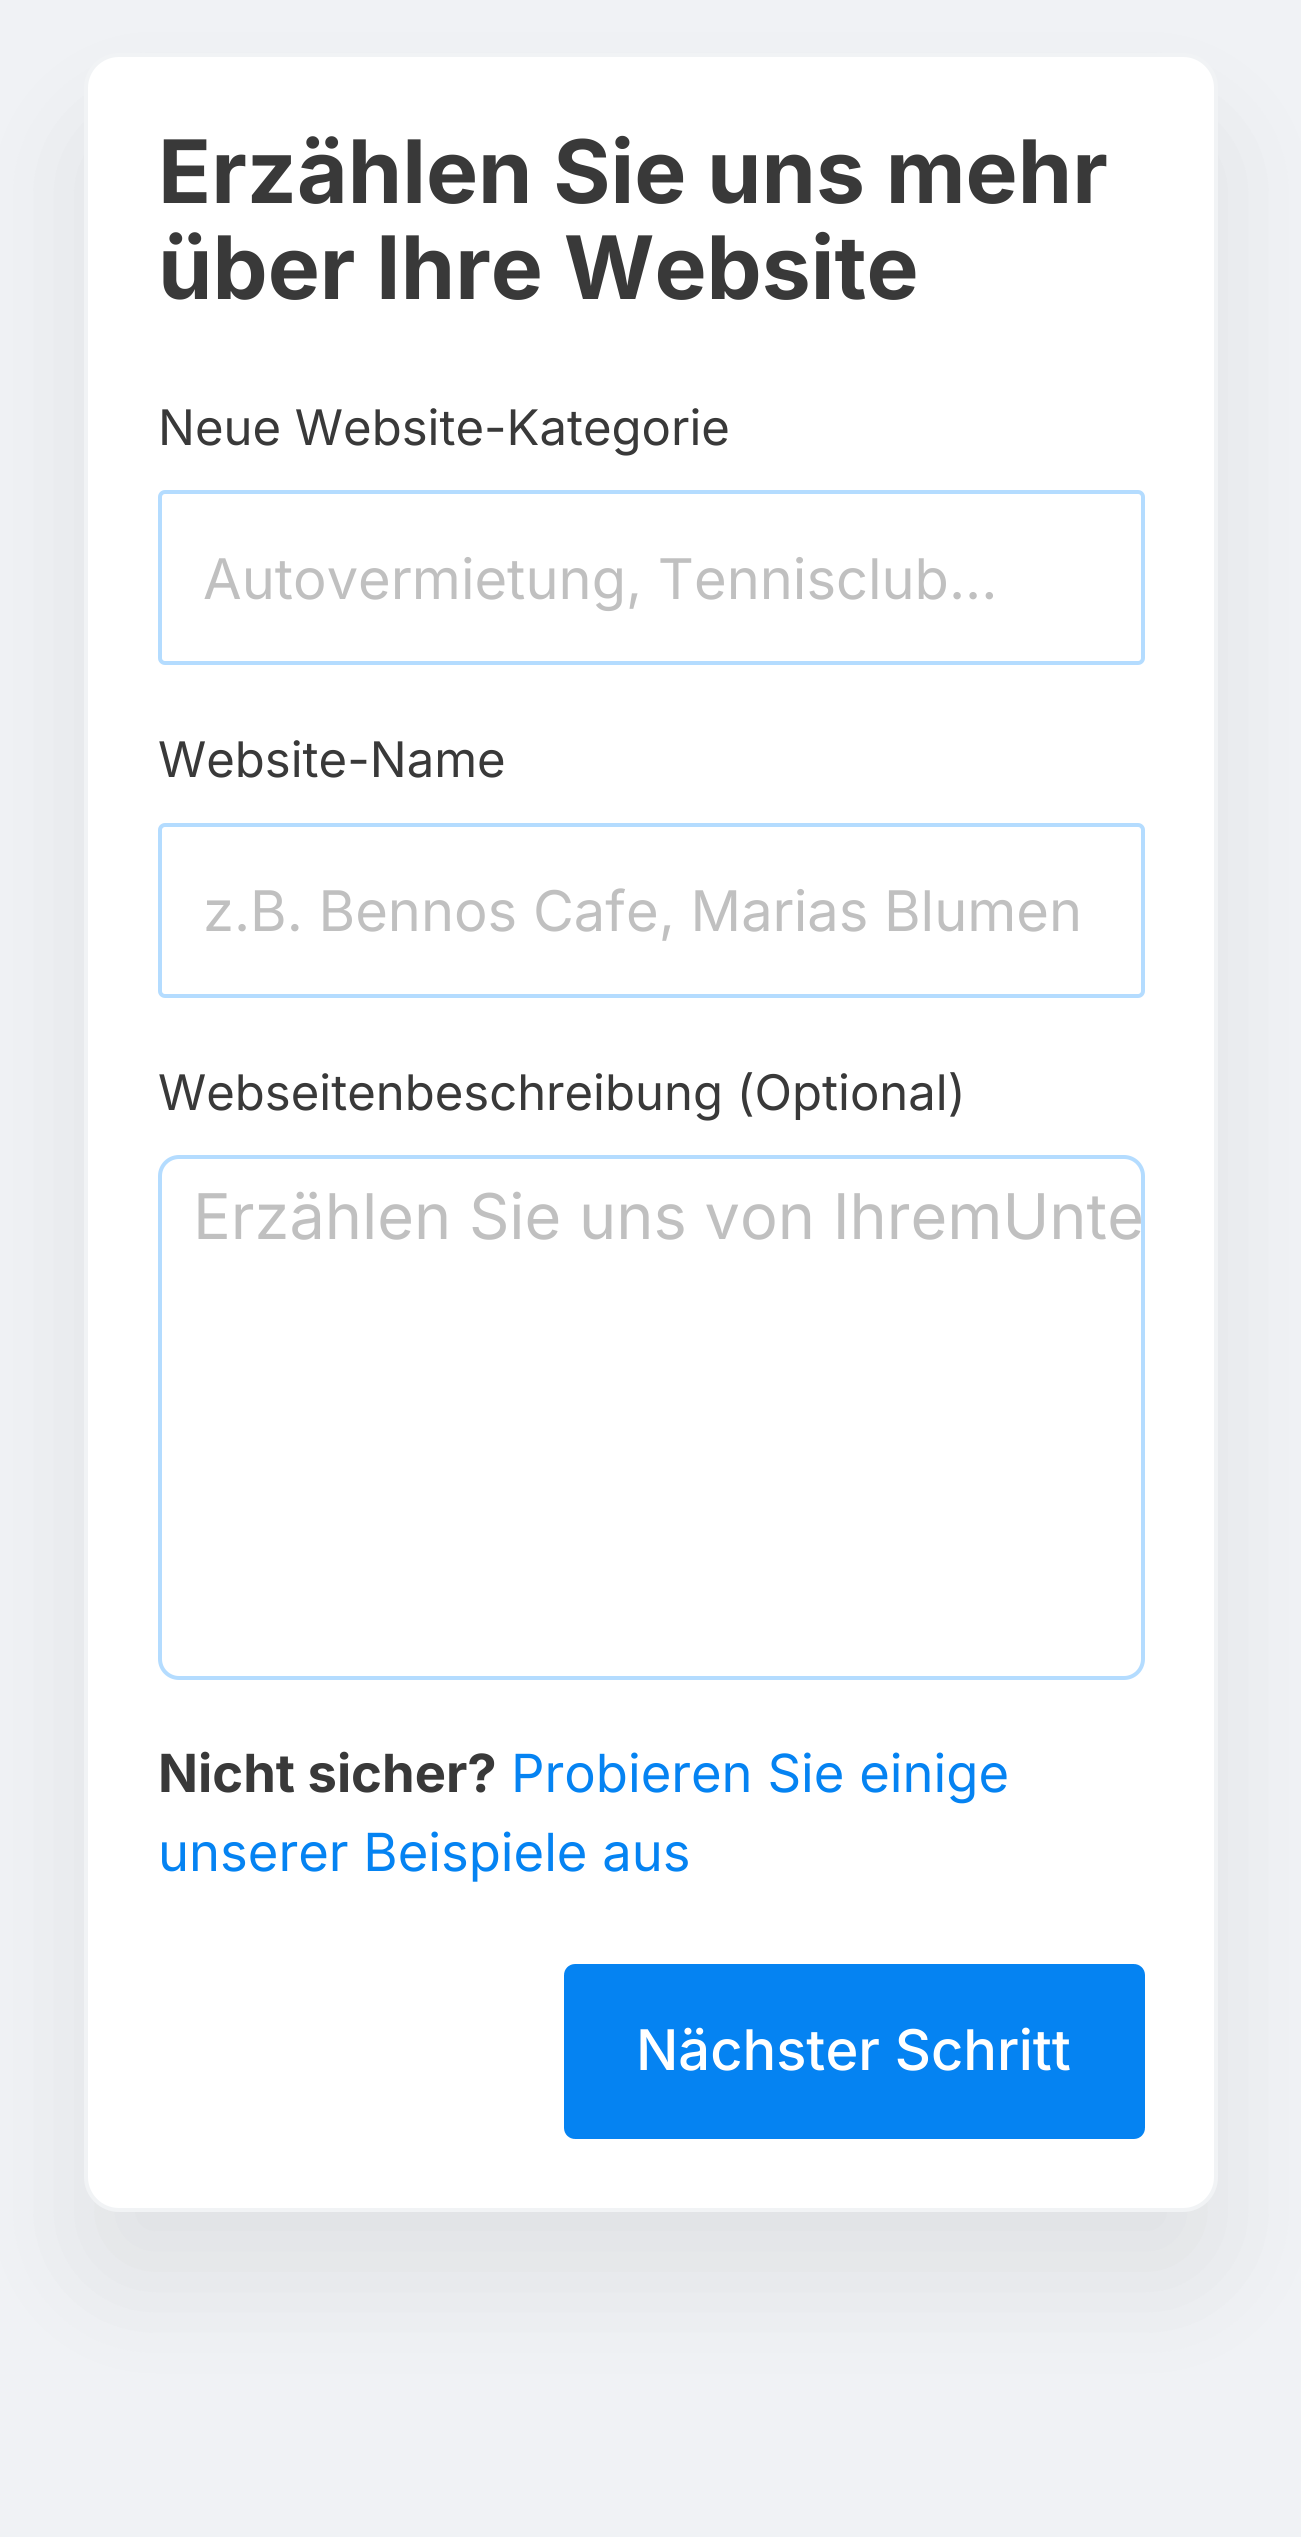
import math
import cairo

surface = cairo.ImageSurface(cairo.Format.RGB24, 1301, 2537)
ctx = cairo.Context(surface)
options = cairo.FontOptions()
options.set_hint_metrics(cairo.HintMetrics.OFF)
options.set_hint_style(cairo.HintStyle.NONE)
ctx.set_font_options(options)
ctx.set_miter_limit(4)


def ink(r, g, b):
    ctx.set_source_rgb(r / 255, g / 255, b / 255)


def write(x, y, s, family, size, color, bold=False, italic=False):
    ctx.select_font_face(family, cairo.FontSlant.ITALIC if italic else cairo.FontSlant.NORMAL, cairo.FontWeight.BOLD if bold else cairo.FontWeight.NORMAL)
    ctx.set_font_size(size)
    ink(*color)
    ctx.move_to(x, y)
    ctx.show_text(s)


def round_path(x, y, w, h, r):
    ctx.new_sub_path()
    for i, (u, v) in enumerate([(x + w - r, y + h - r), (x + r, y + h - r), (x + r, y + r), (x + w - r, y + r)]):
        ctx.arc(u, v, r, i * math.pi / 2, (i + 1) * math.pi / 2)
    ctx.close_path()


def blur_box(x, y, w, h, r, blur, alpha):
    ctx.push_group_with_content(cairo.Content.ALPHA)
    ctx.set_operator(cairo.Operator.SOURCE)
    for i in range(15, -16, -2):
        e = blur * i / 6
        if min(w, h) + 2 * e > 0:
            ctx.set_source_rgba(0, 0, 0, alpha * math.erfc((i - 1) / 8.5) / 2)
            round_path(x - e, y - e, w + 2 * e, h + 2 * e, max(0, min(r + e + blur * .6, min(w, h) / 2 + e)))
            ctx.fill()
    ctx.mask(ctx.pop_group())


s1 = dict(family="Inter", size=87.5, color=(57, 57, 57), bold=True)
s2 = dict(family="Inter", size=49, color=(57, 57, 57))
s3 = dict(family="Inter", size=56, color=(192, 192, 192))
s4 = dict(family="Inter", size=63, color=(192, 192, 192))
s5 = dict(family="Inter", size=52.5, color=(57, 57, 57), bold=True)
s6 = dict(family="Inter", size=52.5, color=(5, 131, 242))
s7 = dict(family="Inter Medium", size=56, color=(255, 255, 255))

ink(240, 242, 245)
ctx.paint()
ink(0, 0, 0)
blur_box(84, 123, 1134, 2159, 35, 61, 0.07)
ink(255, 255, 255)
round_path(86, 55, 1130, 2155, 33)
ctx.fill_preserve()
ink(241, 243, 245)
ctx.set_line_width(4)
ctx.stroke()
write(158, 203, "Erzählen Sie uns mehr", **s1)
write(158, 299, "über Ihre Website", **s1)
write(158, 445, "Neue Website-Kategorie", **s2)
round_path(160, 492, 983, 171, 5)
ink(180, 220, 255)
ctx.stroke()
write(203, 599, "Autovermietung, Tennisclub...", **s3)
write(158, 777, "Website-Name", **s2)
round_path(160, 825, 983, 171, 5)
ink(180, 220, 255)
ctx.stroke()
write(203, 931, "z.B. Bennos Cafe, Marias Blumen", **s3)
write(158, 1110, "Webseitenbeschreibung (Optional)", **s2)
round_path(160, 1157, 983, 521, 19)
ink(180, 220, 255)
ctx.stroke()
write(193, 1239, "Erzählen Sie uns von IhremUnte", **s4)
write(158, 1792, "Nicht sicher?", **s5)
write(511, 1792, "Probieren Sie einige", **s6)
write(158, 1871, "unserer Beispiele aus", **s6)
round_path(573, 1973, 563, 157, 2)
ctx.fill_preserve()
ctx.set_line_width(18)
ctx.stroke()
write(636, 2070, "Nächster Schritt", **s7)
surface.write_to_png("screenshot.png")
